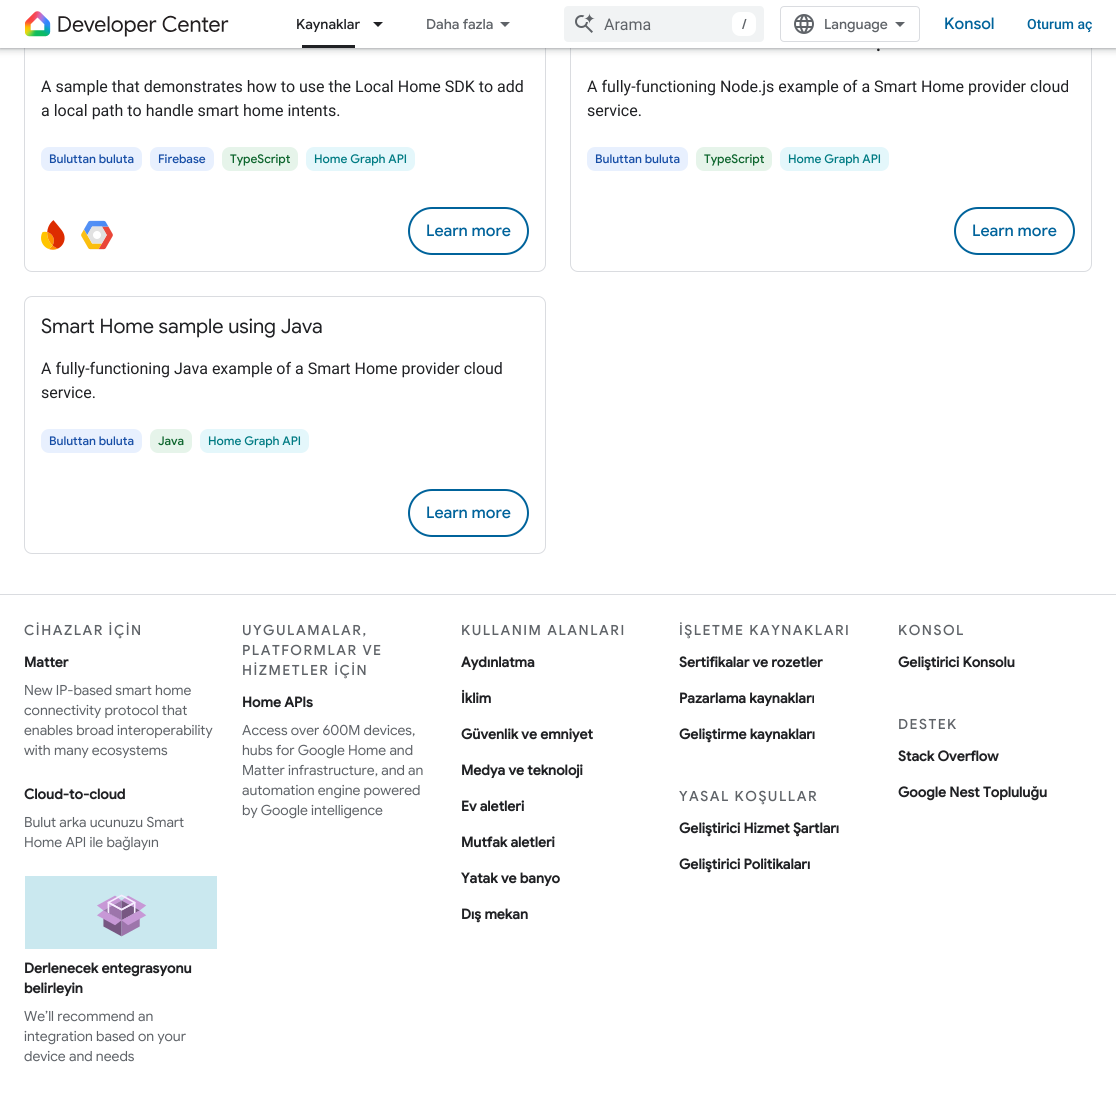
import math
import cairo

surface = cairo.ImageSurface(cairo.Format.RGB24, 1116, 1095)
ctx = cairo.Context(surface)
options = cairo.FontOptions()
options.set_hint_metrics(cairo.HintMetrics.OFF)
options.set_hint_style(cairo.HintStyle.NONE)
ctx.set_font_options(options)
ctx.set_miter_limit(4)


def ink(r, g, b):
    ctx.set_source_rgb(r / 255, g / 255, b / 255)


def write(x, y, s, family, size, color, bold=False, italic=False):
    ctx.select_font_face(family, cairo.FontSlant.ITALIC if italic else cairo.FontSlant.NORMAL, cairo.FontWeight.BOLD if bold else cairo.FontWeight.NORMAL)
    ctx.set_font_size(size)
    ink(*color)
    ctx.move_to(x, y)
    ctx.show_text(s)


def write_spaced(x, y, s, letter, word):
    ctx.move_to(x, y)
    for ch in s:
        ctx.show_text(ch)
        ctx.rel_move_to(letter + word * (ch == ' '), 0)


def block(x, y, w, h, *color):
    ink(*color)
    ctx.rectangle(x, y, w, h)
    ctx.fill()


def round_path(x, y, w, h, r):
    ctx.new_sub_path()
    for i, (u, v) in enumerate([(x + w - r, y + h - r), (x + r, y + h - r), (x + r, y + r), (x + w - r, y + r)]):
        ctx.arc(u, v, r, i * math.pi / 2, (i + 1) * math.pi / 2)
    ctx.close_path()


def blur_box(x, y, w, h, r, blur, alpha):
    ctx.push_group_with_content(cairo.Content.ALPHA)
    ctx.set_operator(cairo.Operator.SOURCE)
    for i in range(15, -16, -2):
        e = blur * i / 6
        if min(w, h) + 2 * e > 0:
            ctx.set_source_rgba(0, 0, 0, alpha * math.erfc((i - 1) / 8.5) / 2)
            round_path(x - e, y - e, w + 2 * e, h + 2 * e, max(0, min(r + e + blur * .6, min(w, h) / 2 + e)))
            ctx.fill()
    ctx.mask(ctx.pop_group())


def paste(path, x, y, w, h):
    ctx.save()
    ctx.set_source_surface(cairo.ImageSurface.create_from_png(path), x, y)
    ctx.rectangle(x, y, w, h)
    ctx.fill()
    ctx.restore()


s1 = dict(family="Google Sans Medium", size=14, color=(32, 33, 36))
s2 = dict(family="Google Sans Medium", size=14, color=(95, 99, 104))
s3 = dict(family="Roboto", size=16, color=(95, 99, 104))
s4 = dict(family="Google Sans Medium", size=16, color=(0, 99, 155))
s5 = dict(family="Roboto Medium", size=14, color=(0, 99, 155))
s6 = dict(family="Roboto", size=16, color=(32, 33, 36))
s7 = dict(family="Google Sans Medium", size=12, color=(23, 78, 166))
s8 = dict(family="Google Sans Medium", size=12, color=(13, 101, 45))
s9 = dict(family="Google Sans Medium", size=12, color=(0, 123, 131))
s10 = dict(family="Google Sans", size=20, color=(32, 33, 36))
s11 = dict(family="Google Sans", size=14, color=(32, 33, 36), bold=True)
s12 = dict(family="Google Sans", size=14, color=(95, 99, 104))

ink(255, 255, 255)
ctx.paint()
round_path(24.5, 14.5, 521, 257, 7.5)
ink(218, 220, 224)
ctx.set_line_width(1)
ctx.stroke()
round_path(570.5, 14.5, 521, 257, 7.5)
ctx.stroke()
ink(60, 64, 67)
blur_box(-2, 0, 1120, 52, 0, 3, 0.15)
blur_box(0, 1, 1116, 48, 0, 1, 0.3)
block(0, 0, 1116, 48, 255, 255, 255)
paste("pic1.png", 25, 11, 204, 26)
write(296, 29, "Kaynaklar", **s1)
block(302, 45, 53, 3, 32, 33, 36)
ctx.new_path()
ctx.move_to(373, 22)
ctx.line_to(383, 22)
ctx.line_to(378, 27)
ctx.close_path()
ctx.fill()
write(426, 29, "Daha fazla", **s2)
ctx.new_path()
ctx.move_to(500, 22)
ctx.line_to(510, 22)
ctx.line_to(505, 27)
ctx.close_path()
ctx.fill()
ink(241, 243, 244)
round_path(564, 6, 200, 36, 4)
ctx.fill()
paste("pic2.png", 575, 13, 20, 20)
write(604, 30, "Arama", **s3)
ink(255, 255, 255)
round_path(732, 12, 24, 24, 8)
ctx.fill()
write(742, 29, "/", **s2)
round_path(780.5, 6.5, 139, 35, 3.5)
ink(218, 220, 224)
ctx.stroke()
paste("pic3.png", 794, 14, 20, 20)
write(824, 29, "Language", **s2)
ctx.new_path()
ctx.move_to(900, 27)
ctx.line_to(895, 22)
ctx.line_to(905, 22)
ctx.close_path()
ctx.fill()
write(944, 29, "Konsol", **s4)
write(1027, 29, "Oturum aç", **s5)
write(41, 92, "A sample that demonstrates how to use the Local Home SDK to add", **s6)
write(41, 116, "a local path to handle smart home intents.", **s6)
ink(232, 240, 254)
round_path(41, 147, 101, 24, 8)
ctx.fill()
write(49, 163, "Buluttan buluta", **s7)
ink(232, 240, 254)
round_path(150, 147, 64, 24, 8)
ctx.fill()
write(158, 163, "Firebase", **s7)
ink(230, 244, 234)
round_path(222, 147, 76, 24, 8)
ctx.fill()
write(230, 163, "TypeScript", **s8)
ink(228, 247, 251)
round_path(306, 147, 109, 24, 8)
ctx.fill()
write(314, 163, "Home Graph API", **s9)
paste("pic4.png", 41, 220, 24, 30)
paste("pic5.png", 81, 220, 32, 30)
round_path(409, 208, 119, 46, 23)
ink(0, 99, 155)
ctx.set_line_width(2)
ctx.stroke()
write(426, 236, "Learn more", **s4)
write(876, 51, ".", **s10)
write(587, 92, "A fully-functioning Node.js example of a Smart Home provider cloud", **s6)
write(587, 116, "service.", **s6)
ink(232, 240, 254)
round_path(587, 147, 101, 24, 8)
ctx.fill()
write(595, 163, "Buluttan buluta", **s7)
ink(230, 244, 234)
round_path(696, 147, 76, 24, 8)
ctx.fill()
write(704, 163, "TypeScript", **s8)
ink(228, 247, 251)
round_path(780, 147, 109, 24, 8)
ctx.fill()
write(788, 163, "Home Graph API", **s9)
round_path(955, 208, 119, 46, 23)
ink(0, 99, 155)
ctx.stroke()
write(972, 236, "Learn more", **s4)
round_path(24.5, 296.5, 521, 257, 7.5)
ink(218, 220, 224)
ctx.set_line_width(1)
ctx.stroke()
write(41, 333, "Smart Home sample using Java", **s10)
write(41, 374, "A fully-functioning Java example of a Smart Home provider cloud", **s6)
write(41, 398, "service.", **s6)
ink(232, 240, 254)
round_path(41, 429, 101, 24, 8)
ctx.fill()
write(49, 445, "Buluttan buluta", **s7)
ink(230, 244, 234)
round_path(150, 429, 42, 24, 8)
ctx.fill()
write(158, 445, "Java", **s8)
ink(228, 247, 251)
round_path(200, 429, 109, 24, 8)
ctx.fill()
write(208, 445, "Home Graph API", **s9)
round_path(409, 490, 119, 46, 23)
ink(0, 99, 155)
ctx.set_line_width(2)
ctx.stroke()
write(426, 518, "Learn more", **s4)
block(0, 594, 1116, 1, 218, 220, 224)
ctx.set_font_size(14)
ink(95, 99, 104)
write_spaced(24, 635, "CİHAZLAR İÇİN", 1.5, 0)
write(24, 667, "Matter", **s11)
write(24, 695, "New IP-based smart home", **s12)
write(24, 715, "connectivity protocol that", **s12)
write(24, 735, "enables broad interoperability", **s12)
write(24, 755, "with many ecosystems", **s12)
write(24, 799, "Cloud-to-cloud", **s11)
write(24, 827, "Bulut arka ucunuzu Smart", **s12)
write(24, 847, "Home API ile bağlayın", **s12)
paste("pic6.png", 25, 876, 192, 73)
write(24, 973, "Derlenecek entegrasyonu", **s11)
write(24, 993, "belirleyin", **s11)
write(24, 1021, "We’ll recommend an", **s12)
write(24, 1041, "integration based on your", **s12)
write(24, 1061, "device and needs", **s12)
ctx.select_font_face("Google Sans Medium")
write_spaced(242, 635, "UYGULAMALAR,", 1.5, 0)
write_spaced(242, 655, "PLATFORMLAR VE", 1.5, 0)
write_spaced(242, 675, "HİZMETLER İÇİN", 1.5, 0)
write(242, 707, "Home APIs", **s11)
write(242, 735, "Access over 600M devices,", **s12)
write(242, 755, "hubs for Google Home and", **s12)
write(242, 775, "Matter infrastructure, and an", **s12)
write(242, 795, "automation engine powered", **s12)
write(242, 815, "by Google intelligence", **s12)
ctx.select_font_face("Google Sans Medium")
write_spaced(461, 635, "KULLANIM ALANLARI", 1.5, 0)
write(461, 667, "Aydınlatma", **s11)
write(461, 703, "İklim", **s11)
write(461, 739, "Güvenlik ve emniyet", **s11)
write(461, 775, "Medya ve teknoloji", **s11)
write(461, 811, "Ev aletleri", **s11)
write(461, 847, "Mutfak aletleri", **s11)
write(461, 883, "Yatak ve banyo", **s11)
write(461, 919, "Dış mekan", **s11)
ctx.select_font_face("Google Sans Medium")
ink(95, 99, 104)
write_spaced(679, 635, "İŞLETME KAYNAKLARI", 1.5, 0)
write(679, 667, "Sertifikalar ve rozetler", **s11)
write(679, 703, "Pazarlama kaynakları", **s11)
write(679, 739, "Geliştirme kaynakları", **s11)
ctx.select_font_face("Google Sans Medium")
ink(95, 99, 104)
write_spaced(679, 801, "YASAL KOŞULLAR", 1.5, 0)
write(679, 833, "Geliştirici Hizmet Şartları", **s11)
write(679, 869, "Geliştirici Politikaları", **s11)
ctx.select_font_face("Google Sans Medium")
ink(95, 99, 104)
write_spaced(898, 635, "KONSOL", 1.5, 0)
write(898, 667, "Geliştirici Konsolu", **s11)
ctx.select_font_face("Google Sans Medium")
ink(95, 99, 104)
write_spaced(898, 729, "DESTEK", 1.5, 0)
write(898, 761, "Stack Overflow", **s11)
write(898, 797, "Google Nest Topluluğu", **s11)
surface.write_to_png("screenshot.png")
